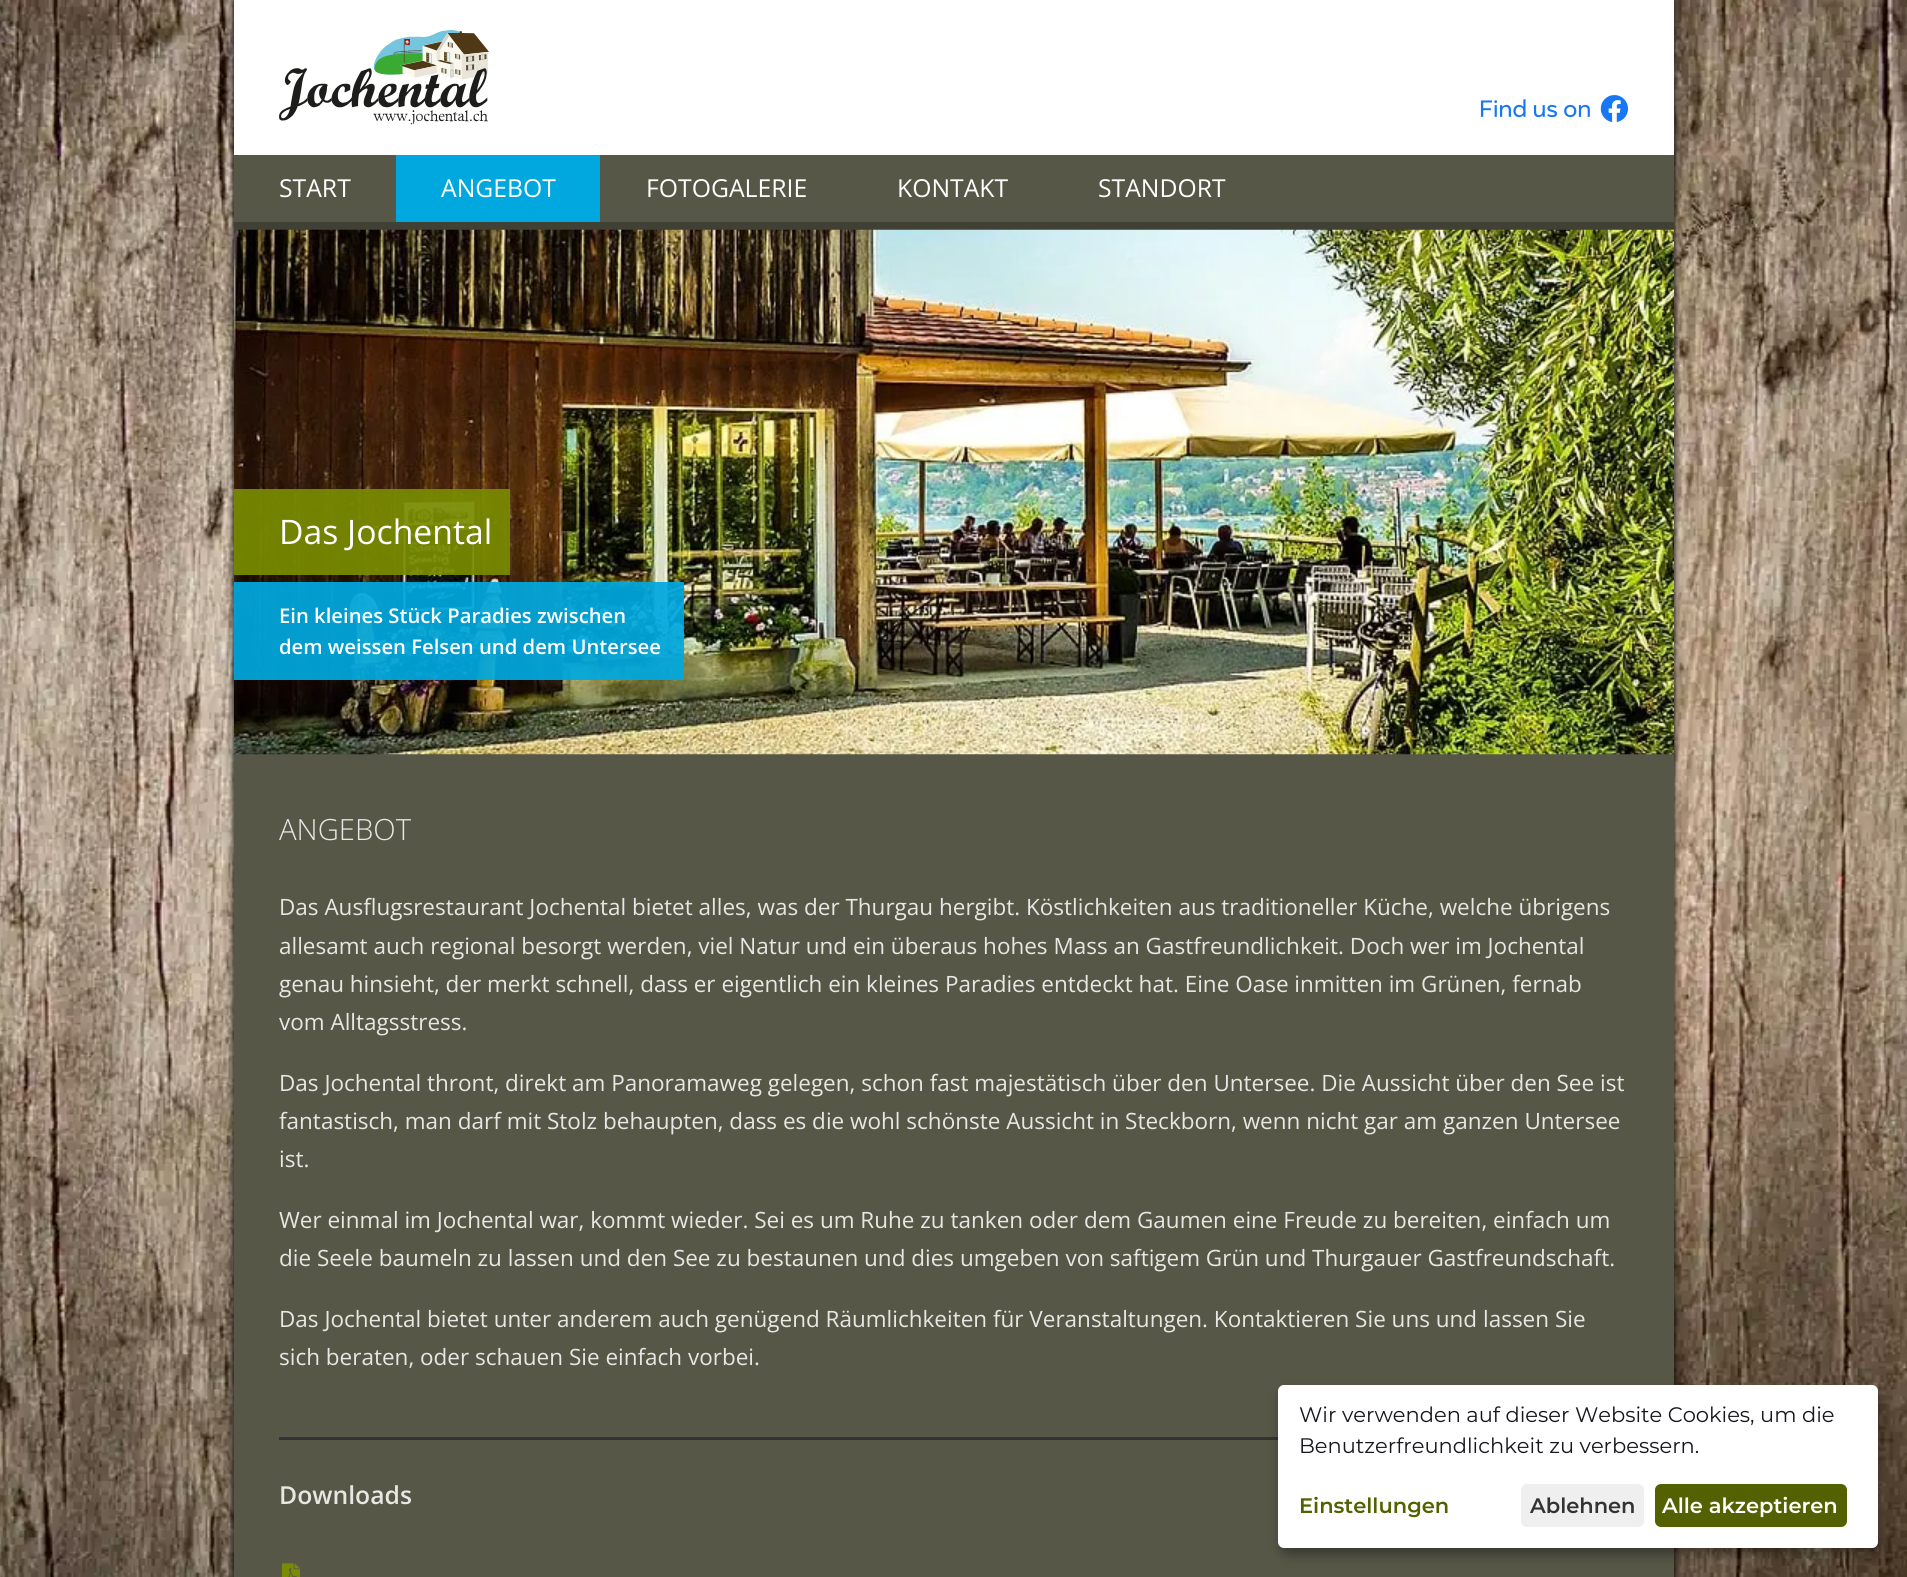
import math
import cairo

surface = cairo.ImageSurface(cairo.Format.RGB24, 1907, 1577)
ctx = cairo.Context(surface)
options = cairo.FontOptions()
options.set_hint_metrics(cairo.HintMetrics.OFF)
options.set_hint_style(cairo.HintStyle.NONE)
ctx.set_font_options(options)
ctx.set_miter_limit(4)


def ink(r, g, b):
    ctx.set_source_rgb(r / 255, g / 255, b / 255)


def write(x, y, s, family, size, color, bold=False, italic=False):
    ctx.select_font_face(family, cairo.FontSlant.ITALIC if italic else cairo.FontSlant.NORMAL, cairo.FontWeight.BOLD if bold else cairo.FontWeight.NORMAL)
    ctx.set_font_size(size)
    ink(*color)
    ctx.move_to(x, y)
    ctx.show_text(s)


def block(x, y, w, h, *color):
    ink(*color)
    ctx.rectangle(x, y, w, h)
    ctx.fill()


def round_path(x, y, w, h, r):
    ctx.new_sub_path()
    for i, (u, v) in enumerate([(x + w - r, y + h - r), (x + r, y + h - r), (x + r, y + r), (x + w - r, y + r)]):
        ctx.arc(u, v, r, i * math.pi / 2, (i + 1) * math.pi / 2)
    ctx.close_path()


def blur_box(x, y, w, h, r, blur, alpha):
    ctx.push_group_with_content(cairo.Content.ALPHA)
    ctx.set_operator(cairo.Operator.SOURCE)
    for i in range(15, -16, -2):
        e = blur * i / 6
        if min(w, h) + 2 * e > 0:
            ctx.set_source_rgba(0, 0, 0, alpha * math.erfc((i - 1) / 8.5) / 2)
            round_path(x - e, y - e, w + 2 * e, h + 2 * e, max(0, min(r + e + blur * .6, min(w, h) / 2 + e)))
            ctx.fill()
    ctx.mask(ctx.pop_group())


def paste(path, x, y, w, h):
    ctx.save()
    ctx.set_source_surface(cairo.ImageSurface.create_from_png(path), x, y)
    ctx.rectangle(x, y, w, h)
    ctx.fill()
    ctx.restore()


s1 = dict(family="Open Sans", size=24.75, color=(255, 255, 255))
s2 = dict(family="Open Sans", size=33.75, color=(255, 255, 255))
s3 = dict(family="Open Sans SemiBold", size=20.25, color=(255, 255, 255))
s4 = dict(family="Open Sans Light", size=29.25, color=(231, 231, 228))
s5 = dict(family="Open Sans", size=22.5, color=(231, 231, 228))
s6 = dict(family="Open Sans SemiBold", size=24.75, color=(231, 231, 228))
s7 = dict(family="Montserrat", size=21, color=(22, 22, 29))
s8 = dict(family="Montserrat SemiBold", size=21, color=(84, 97, 0))
s9 = dict(family="Montserrat SemiBold", size=21, color=(51, 51, 51))
s10 = dict(family="Montserrat SemiBold", size=21, color=(255, 255, 255))

ink(255, 255, 255)
ctx.paint()
paste("pic1.png", 0, 0, 1907, 1577)
ink(0, 0, 0)
blur_box(234, 0, 1440, 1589, 0, 4, 1)
block(234, 155, 1440, 1422, 87, 87, 72)
block(234, 0, 1440, 155, 255, 255, 255)
paste("pic2.png", 279, 30, 210, 95)
block(234, 222, 1440, 8, 64, 64, 53)
paste("pic3.png", 1480, 95, 149, 28)
write(279, 197, "START", **s1)
block(396, 155, 204, 67, 0, 168, 223)
write(441, 197, "ANGEBOT", **s1)
write(646, 197, "FOTOGALERIE", **s1)
write(897, 197, "KONTAKT", **s1)
write(1098, 197, "STANDORT", **s1)
paste("pic4.png", 234, 229, 1440, 526)
ctx.set_source_rgba(0.475, 0.545, 0.004, 0.92)
ctx.rectangle(234, 489, 276, 86)
ctx.fill()
write(279, 544, "Das Jochental", **s2)
ctx.set_source_rgba(0, 0.659, 0.875, 0.92)
ctx.rectangle(234, 582, 450, 98)
ctx.fill()
write(279, 623, "Ein kleines Stück Paradies zwischen", **s3)
write(279, 654, "dem weissen Felsen und dem Untersee", **s3)
write(279, 840, "ANGEBOT", **s4)
write(279, 915, "Das Ausflugsrestaurant Jochental bietet alles, was der Thurgau hergibt. Köstlichkeiten aus traditioneller Küche, welche übrigens", **s5)
write(279, 954, "allesamt auch regional besorgt werden, viel Natur und ein überaus hohes Mass an Gastfreundlichkeit. Doch wer im Jochental", **s5)
write(279, 992, "genau hinsieht, der merkt schnell, dass er eigentlich ein kleines Paradies entdeckt hat. Eine Oase inmitten im Grünen, fernab", **s5)
write(279, 1030, "vom Alltagsstress.", **s5)
write(279, 1091, "Das Jochental thront, direkt am Panoramaweg gelegen, schon fast majestätisch über den Untersee. Die Aussicht über den See ist", **s5)
write(279, 1129, "fantastisch, man darf mit Stolz behaupten, dass es die wohl schönste Aussicht in Steckborn, wenn nicht gar am ganzen Untersee", **s5)
write(279, 1167, "ist.", **s5)
write(279, 1228, "Wer einmal im Jochental war, kommt wieder. Sei es um Ruhe zu tanken oder dem Gaumen eine Freude zu bereiten, einfach um", **s5)
write(279, 1266, "die Seele baumeln zu lassen und den See zu bestaunen und dies umgeben von saftigem Grün und Thurgauer Gastfreundschaft.", **s5)
write(279, 1327, "Das Jochental bietet unter anderem auch genügend Räumlichkeiten für Veranstaltungen. Kontaktieren Sie uns und lassen Sie", **s5)
write(279, 1365, "sich beraten, oder schauen Sie einfach vorbei.", **s5)
block(279, 1437, 999, 3, 51, 51, 51)
write(279, 1504, "Downloads", **s6)
paste("pic5.png", 282, 1563, 18, 14)
ink(0, 0, 0)
blur_box(1286, 1392, 600, 164, 6, 7.5, 0.19)
blur_box(1278, 1391, 600, 163, 6, 4.5, 0.2)
ink(255, 255, 255)
round_path(1278, 1385, 600, 163, 6)
ctx.fill()
write(1299, 1422, "Wir verwenden auf dieser Website Cookies, um die", **s7)
write(1299, 1453, "Benutzerfreundlichkeit zu verbessern.", **s7)
write(1299, 1513, "Einstellungen", **s8)
ink(239, 239, 239)
round_path(1521, 1484, 123, 43, 6)
ctx.fill()
write(1530, 1513, "Ablehnen", **s9)
ink(84, 97, 0)
round_path(1655, 1484, 192, 43, 6)
ctx.fill()
write(1662, 1513, "Alle akzeptieren", **s10)
surface.write_to_png("screenshot.png")
